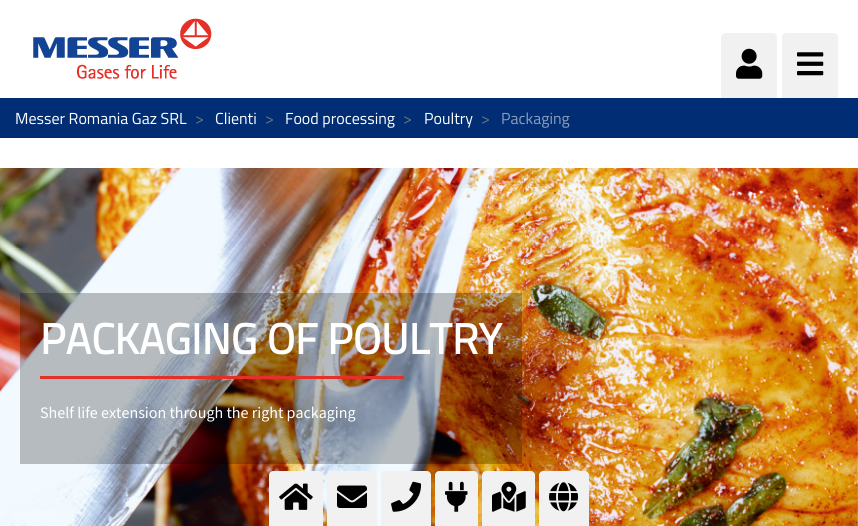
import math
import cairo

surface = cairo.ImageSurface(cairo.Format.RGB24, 858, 526)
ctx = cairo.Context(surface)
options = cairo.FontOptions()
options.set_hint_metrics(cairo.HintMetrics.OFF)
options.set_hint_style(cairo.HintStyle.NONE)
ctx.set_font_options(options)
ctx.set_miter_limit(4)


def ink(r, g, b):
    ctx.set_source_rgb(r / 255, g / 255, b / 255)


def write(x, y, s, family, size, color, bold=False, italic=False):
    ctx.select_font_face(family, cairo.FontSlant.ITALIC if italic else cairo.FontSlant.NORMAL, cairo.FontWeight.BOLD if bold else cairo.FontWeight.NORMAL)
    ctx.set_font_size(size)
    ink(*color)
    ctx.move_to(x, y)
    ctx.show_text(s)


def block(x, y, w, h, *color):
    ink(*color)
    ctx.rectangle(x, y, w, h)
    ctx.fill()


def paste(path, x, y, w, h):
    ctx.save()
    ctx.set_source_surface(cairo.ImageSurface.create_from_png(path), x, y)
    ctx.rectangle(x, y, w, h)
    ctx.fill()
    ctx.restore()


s1 = dict(family="Titillium Web", size=16, color=(255, 255, 255))
s2 = dict(family="Titillium Web", size=16, color=(108, 117, 125))
s3 = dict(family="Titillium Web", size=16, color=(139, 158, 188))
s4 = dict(family="Titillium Web", size=43, color=(255, 255, 255), bold=True)
s5 = dict(family="Source Sans 3", size=16, color=(255, 255, 255))

ink(255, 255, 255)
ctx.paint()
paste("pic1.png", 33, 18, 179, 61)
ink(241, 241, 241)
ctx.new_path()
ctx.move_to(725, 33)
ctx.line_to(773, 33)
ctx.curve_to(775, 33, 777, 35, 777, 37)
ctx.line_to(777, 98)
ctx.line_to(721, 98)
ctx.line_to(721, 37)
ctx.curve_to(721, 35, 723, 33, 725, 33)
ctx.close_path()
ctx.fill()
paste("pic2.png", 736, 48, 27, 31)
ctx.new_path()
ctx.move_to(786, 33)
ctx.line_to(834, 33)
ctx.curve_to(836, 33, 838, 35, 838, 37)
ctx.line_to(838, 98)
ctx.line_to(782, 98)
ctx.line_to(782, 37)
ctx.curve_to(782, 35, 784, 33, 786, 33)
ctx.close_path()
ctx.fill()
paste("pic3.png", 797, 52, 27, 24)
block(0, 98, 858, 40, 0, 45, 115)
write(15, 124, "Messer Romania Gaz SRL", **s1)
write(195, 124, ">", **s2)
write(215, 124, "Clienti", **s1)
write(265, 124, ">", **s2)
write(285, 124, "Food processing", **s1)
write(403, 124, ">", **s2)
write(424, 124, "Poultry", **s1)
write(481, 124, ">", **s2)
write(501, 124, "Packaging", **s3)
paste("pic4.png", 0, 168, 858, 358)
ctx.set_source_rgba(0, 0, 0, 0.25)
ctx.rectangle(20, 293, 502, 171)
ctx.fill()
write(40, 354, "PACKAGING OF POULTRY", **s4)
block(40, 376, 364, 3, 227, 49, 42)
write(40, 418, "Shelf life extension through the right packaging", **s5)
ink(241, 241, 241)
ctx.new_path()
ctx.move_to(273, 471)
ctx.line_to(319, 471)
ctx.curve_to(321, 471, 323, 473, 323, 475)
ctx.line_to(323, 526)
ctx.line_to(269, 526)
ctx.line_to(269, 475)
ctx.curve_to(269, 473, 271, 471, 273, 471)
ctx.close_path()
ctx.fill()
paste("pic5.png", 279, 483, 34, 27)
ctx.new_path()
ctx.move_to(331, 471)
ctx.line_to(373, 471)
ctx.curve_to(375, 471, 377, 473, 377, 475)
ctx.line_to(377, 526)
ctx.line_to(327, 526)
ctx.line_to(327, 475)
ctx.curve_to(327, 473, 329, 471, 331, 471)
ctx.close_path()
ctx.fill()
paste("pic6.png", 337, 485, 30, 23)
ctx.new_path()
ctx.move_to(385, 471)
ctx.line_to(427, 471)
ctx.curve_to(429, 471, 431, 473, 431, 475)
ctx.line_to(431, 526)
ctx.line_to(381, 526)
ctx.line_to(381, 475)
ctx.curve_to(381, 473, 383, 471, 385, 471)
ctx.close_path()
ctx.fill()
paste("pic7.png", 391, 481, 31, 31)
ctx.new_path()
ctx.move_to(439, 471)
ctx.line_to(474, 471)
ctx.curve_to(476, 471, 478, 473, 478, 475)
ctx.line_to(478, 526)
ctx.line_to(435, 526)
ctx.line_to(435, 475)
ctx.curve_to(435, 473, 437, 471, 439, 471)
ctx.close_path()
ctx.fill()
paste("pic8.png", 445, 481, 23, 31)
ctx.new_path()
ctx.move_to(486, 471)
ctx.line_to(531, 471)
ctx.curve_to(533, 471, 535, 473, 535, 475)
ctx.line_to(535, 526)
ctx.line_to(482, 526)
ctx.line_to(482, 475)
ctx.curve_to(482, 473, 484, 471, 486, 471)
ctx.close_path()
ctx.fill()
paste("pic9.png", 492, 481, 34, 31)
ctx.new_path()
ctx.move_to(543, 471)
ctx.line_to(585, 471)
ctx.curve_to(587, 471, 589, 473, 589, 475)
ctx.line_to(589, 526)
ctx.line_to(539, 526)
ctx.line_to(539, 475)
ctx.curve_to(539, 473, 541, 471, 543, 471)
ctx.close_path()
ctx.fill()
paste("pic10.png", 549, 482, 30, 30)
surface.write_to_png("screenshot.png")
